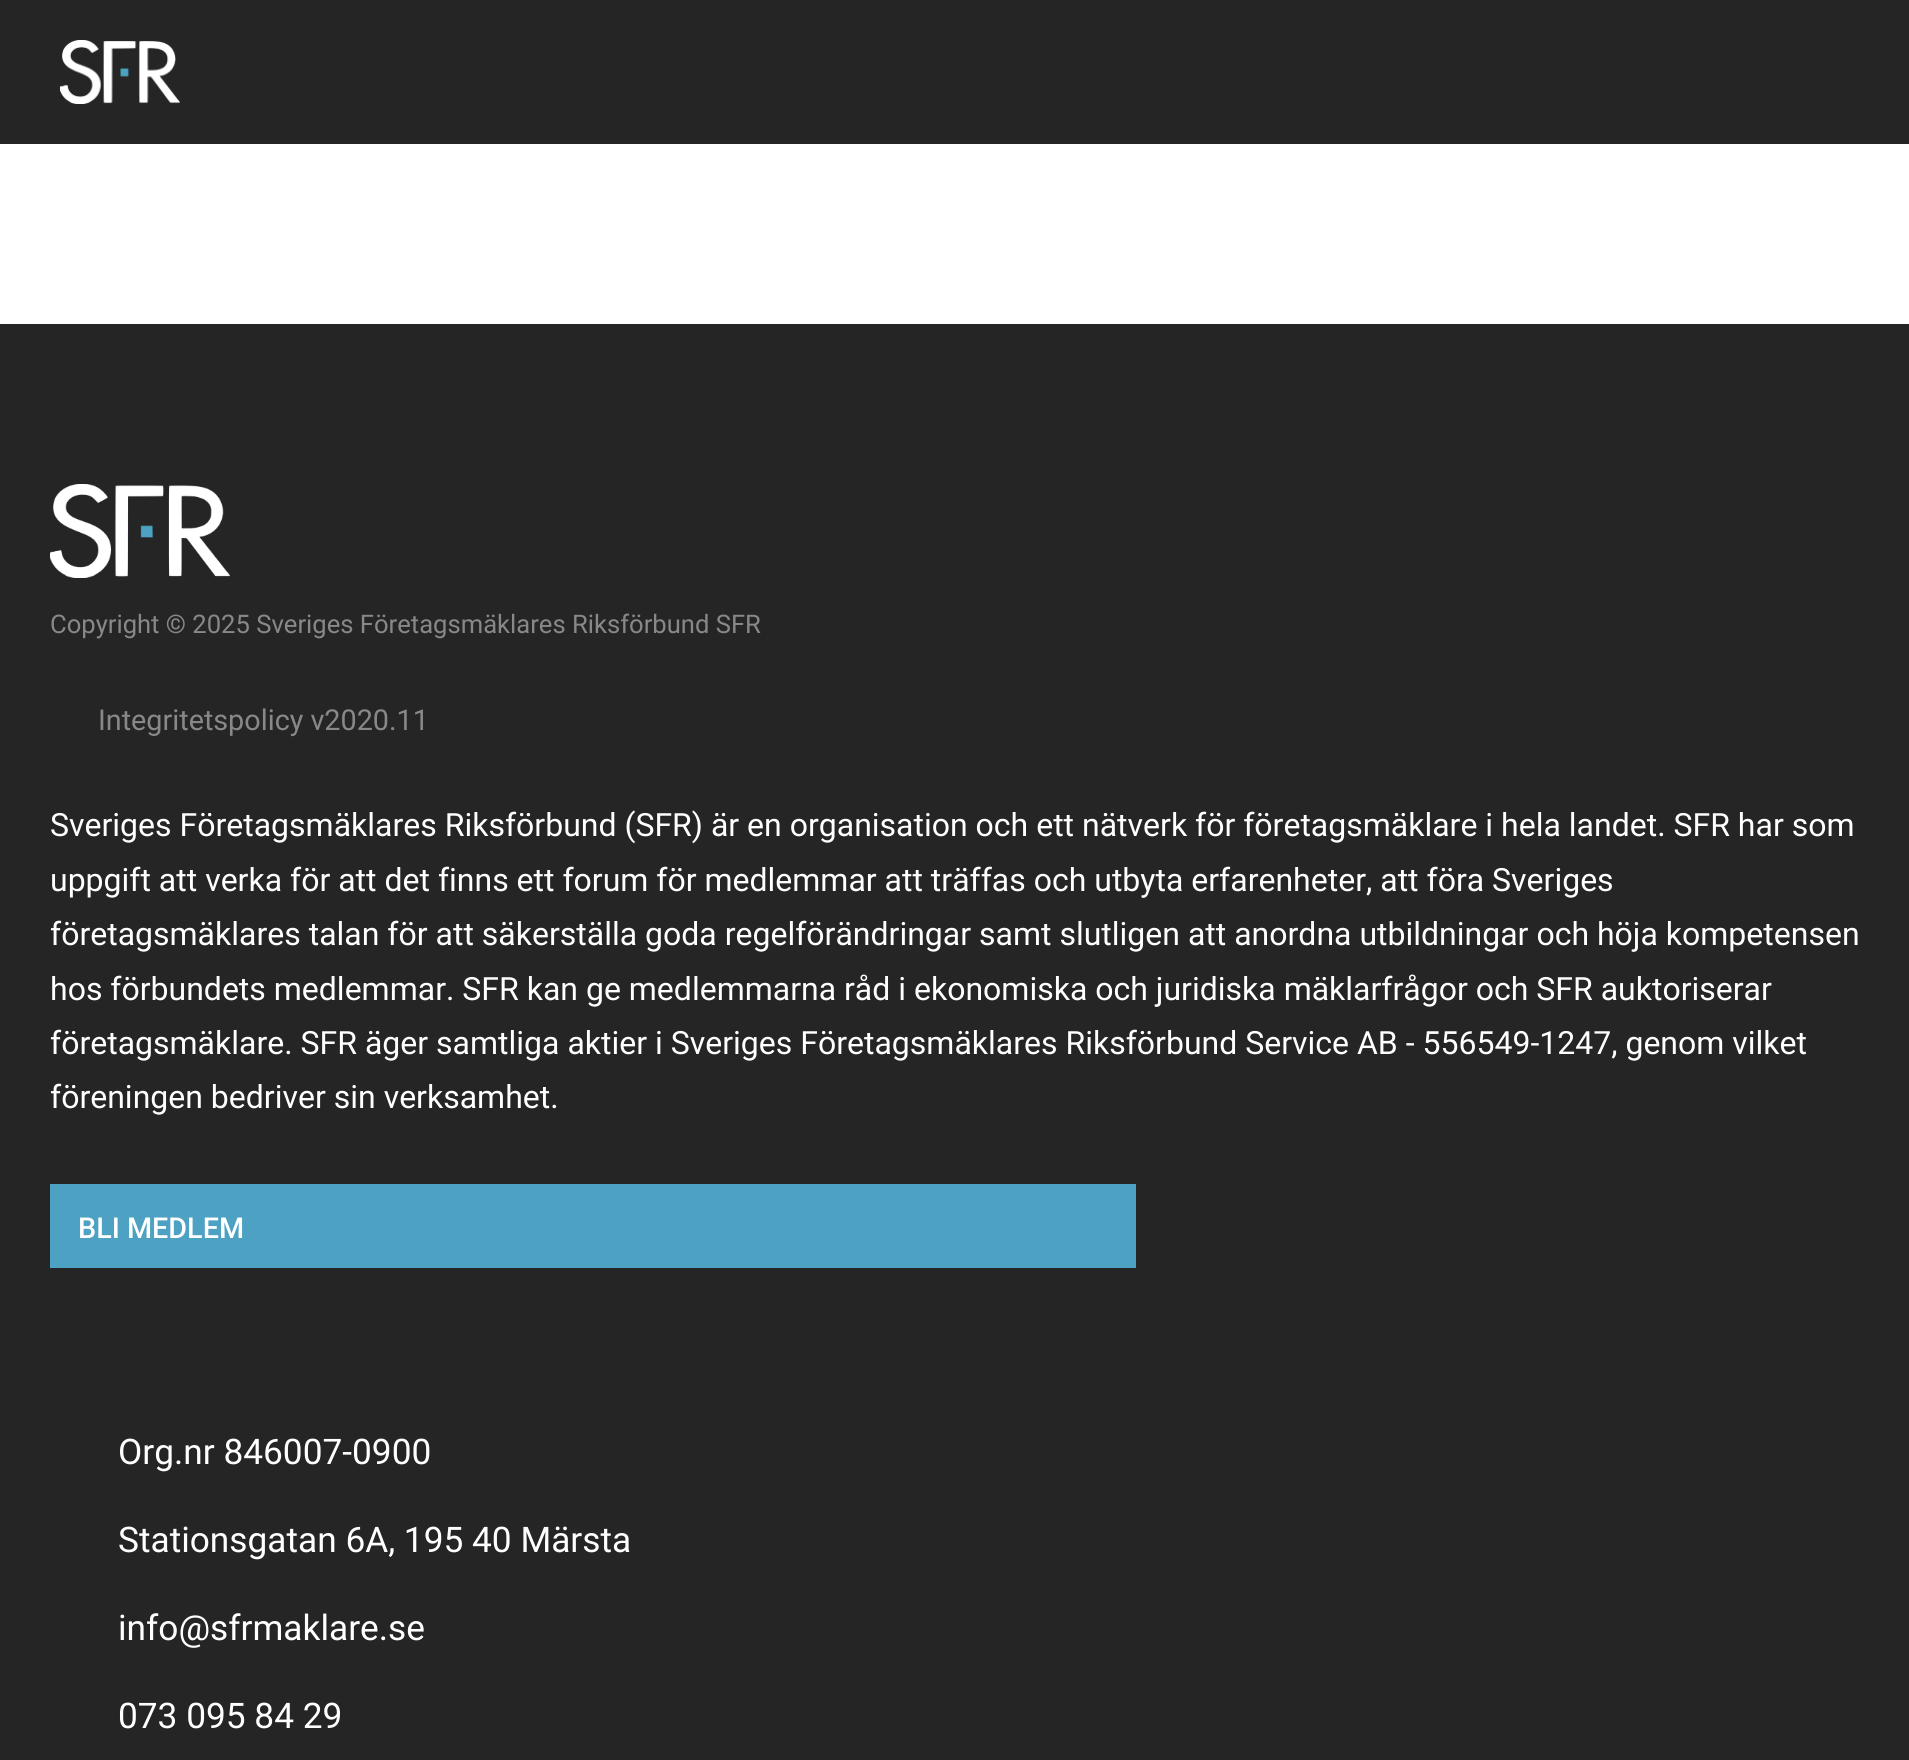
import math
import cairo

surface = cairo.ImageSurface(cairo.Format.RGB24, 1909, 1760)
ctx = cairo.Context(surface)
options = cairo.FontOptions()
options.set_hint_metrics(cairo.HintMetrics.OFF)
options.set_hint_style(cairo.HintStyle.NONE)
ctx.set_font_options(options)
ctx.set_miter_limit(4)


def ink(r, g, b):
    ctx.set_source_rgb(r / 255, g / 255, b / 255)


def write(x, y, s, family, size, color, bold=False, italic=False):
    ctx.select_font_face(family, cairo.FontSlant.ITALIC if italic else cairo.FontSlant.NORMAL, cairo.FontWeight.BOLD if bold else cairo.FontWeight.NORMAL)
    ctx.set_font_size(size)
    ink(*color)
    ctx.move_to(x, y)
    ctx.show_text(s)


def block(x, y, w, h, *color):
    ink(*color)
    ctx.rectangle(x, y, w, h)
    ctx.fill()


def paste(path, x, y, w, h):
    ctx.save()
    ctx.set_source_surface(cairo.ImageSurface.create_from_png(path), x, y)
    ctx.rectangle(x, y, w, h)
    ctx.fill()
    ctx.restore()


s1 = dict(family="Roboto", size=25.6, color=(136, 136, 136))
s2 = dict(family="Roboto", size=28.75, color=(136, 136, 136))
s3 = dict(family="Roboto", size=32, color=(255, 255, 255))
s4 = dict(family="Roboto Medium", size=28.75, color=(255, 255, 255))
s5 = dict(family="Roboto", size=35.25, color=(255, 255, 255))

ink(255, 255, 255)
ctx.paint()
block(0, 0, 1909, 144, 37, 37, 37)
paste("pic1.png", 60, 40, 120, 64)
block(0, 324, 1909, 1436, 37, 37, 37)
paste("pic2.png", 50, 484, 180, 94)
write(50, 633, "Copyright © 2025 Sveriges Företagsmäklares Riksförbund SFR", **s1)
write(98, 730, "Integritetspolicy v2020.11", **s2)
write(50, 836, "Sveriges Företagsmäklares Riksförbund (SFR) är en organisation och ett nätverk för företagsmäklare i hela landet. SFR har som", **s3)
write(50, 891, "uppgift att verka för att det finns ett forum för medlemmar att träffas och utbyta erfarenheter, att föra Sveriges", **s3)
write(50, 945, "företagsmäklares talan för att säkerställa goda regelförändringar samt slutligen att anordna utbildningar och höja kompetensen", **s3)
write(50, 1000, "hos förbundets medlemmar. SFR kan ge medlemmarna råd i ekonomiska och juridiska mäklarfrågor och SFR auktoriserar", **s3)
write(50, 1054, "företagsmäklare. SFR äger samtliga aktier i Sveriges Företagsmäklares Riksförbund Service AB - 556549-1247, genom vilket", **s3)
write(50, 1108, "föreningen bedriver sin verksamhet.", **s3)
block(50, 1184, 1086, 84, 77, 161, 194)
write(78, 1238, "BLI MEDLEM", **s4)
write(118, 1464, "Org.nr 846007-0900", **s5)
write(118, 1552, "Stationsgatan 6A, 195 40 Märsta", **s5)
write(118, 1640, "info@sfrmaklare.se", **s5)
write(118, 1728, "073 095 84 29", **s5)
surface.write_to_png("screenshot.png")
